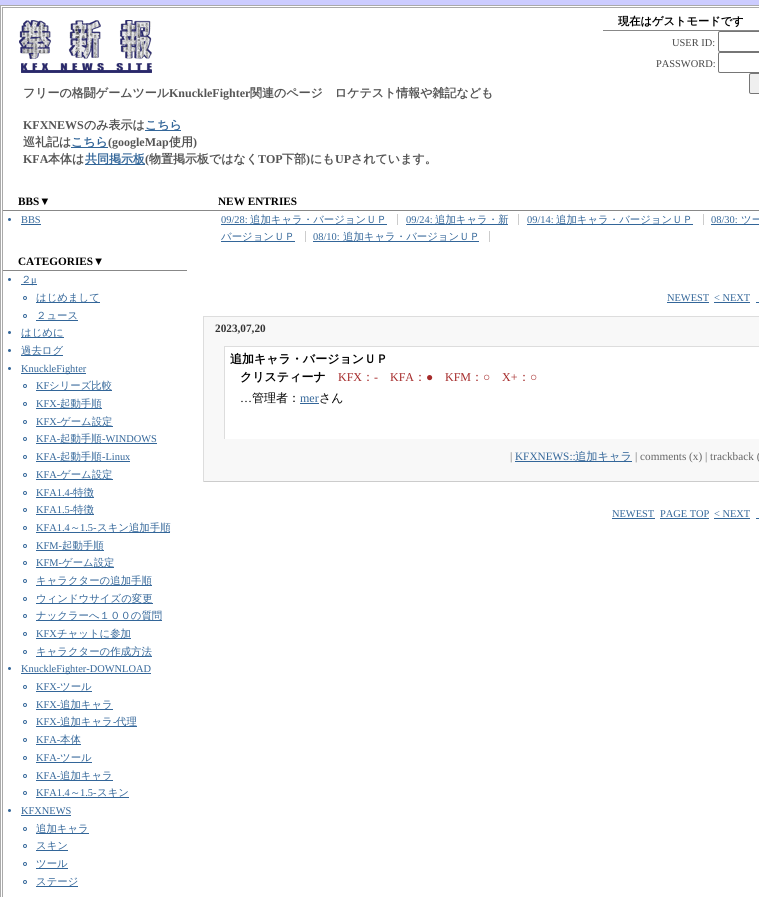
import math
import cairo

surface = cairo.ImageSurface(cairo.Format.RGB24, 759, 897)
ctx = cairo.Context(surface)
options = cairo.FontOptions()
options.set_hint_metrics(cairo.HintMetrics.OFF)
options.set_hint_style(cairo.HintStyle.NONE)
ctx.set_font_options(options)
ctx.set_miter_limit(4)


def ink(r, g, b):
    ctx.set_source_rgb(r / 255, g / 255, b / 255)


def write(x, y, s, family, size, color, bold=False, italic=False):
    ctx.select_font_face(family, cairo.FontSlant.ITALIC if italic else cairo.FontSlant.NORMAL, cairo.FontWeight.BOLD if bold else cairo.FontWeight.NORMAL)
    ctx.set_font_size(size)
    ink(*color)
    ctx.move_to(x, y)
    ctx.show_text(s)


def block(x, y, w, h, *color):
    ink(*color)
    ctx.rectangle(x, y, w, h)
    ctx.fill()


def round_path(x, y, w, h, r):
    ctx.new_sub_path()
    for i, (u, v) in enumerate([(x + w - r, y + h - r), (x + r, y + h - r), (x + r, y + r), (x + w - r, y + r)]):
        ctx.arc(u, v, r, i * math.pi / 2, (i + 1) * math.pi / 2)
    ctx.close_path()


def paste(path, x, y, w, h):
    ctx.save()
    ctx.set_source_surface(cairo.ImageSurface.create_from_png(path), x, y)
    ctx.rectangle(x, y, w, h)
    ctx.fill()
    ctx.restore()


s1 = dict(family="WenQuanYi Zen Hei", size=11.25, color=(0, 0, 0), bold=True)
s2 = dict(family="Liberation Serif", size=10.4, color=(68, 68, 68))
s3 = dict(family="WenQuanYi Zen Hei", size=12, color=(85, 85, 85), bold=True)
s4 = dict(family="Liberation Serif", size=12, color=(85, 85, 85), bold=True)
s5 = dict(family="WenQuanYi Zen Hei", size=12, color=(51, 102, 153), bold=True)
s6 = dict(family="Liberation Serif", size=11.25, color=(0, 0, 0), bold=True)
s7 = dict(family="Liberation Serif", size=10.4, color=(51, 102, 153))
s8 = dict(family="WenQuanYi Zen Hei Medium", size=10.4, color=(51, 102, 153))
s9 = dict(family="Liberation Serif", size=11.25, color=(51, 51, 51), bold=True)
s10 = dict(family="WenQuanYi Zen Hei", size=12, color=(0, 0, 0), bold=True)
s11 = dict(family="Liberation Serif", size=12, color=(165, 42, 42))
s12 = dict(family="WenQuanYi Zen Hei Medium", size=12, color=(165, 42, 42))
s13 = dict(family="Liberation Serif", size=12, color=(0, 0, 0))
s14 = dict(family="WenQuanYi Zen Hei Medium", size=12, color=(0, 0, 0))
s15 = dict(family="Liberation Serif", size=12, color=(51, 102, 153))
s16 = dict(family="Liberation Serif", size=11.25, color=(102, 102, 102))
s17 = dict(family="Liberation Serif", size=11.25, color=(51, 102, 153))
s18 = dict(family="WenQuanYi Zen Hei Medium", size=11.25, color=(51, 102, 153))

ink(204, 204, 255)
ctx.paint()
ink(255, 255, 255)
ctx.rectangle(0.5, 5.5, 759, 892)
ctx.fill_preserve()
ink(170, 170, 170)
ctx.set_line_width(1)
ctx.stroke()
ctx.rectangle(2.5, 7.5, 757, 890)
ctx.stroke()
block(603, 30, 156, 1, 136, 136, 136)
write(618, 25, "現在はゲストモードです", **s1)
write(672, 46, "USER ID:", **s2)
round_path(718.5, 31.5, 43, 20, 1.5)
ink(118, 118, 118)
ctx.stroke()
write(656, 67, "PASSWORD:", **s2)
round_path(718.5, 52.5, 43, 20, 1.5)
ink(118, 118, 118)
ctx.stroke()
ink(239, 239, 239)
round_path(749.5, 73.5, 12, 20, 1.5)
ctx.fill_preserve()
ink(118, 118, 118)
ctx.stroke()
paste("pic1.png", 19, 20, 133, 53)
write(23, 97, "フリーの格闘ゲームツール", **s3)
write(169, 97, "KnuckleFighter", **s4)
write(250, 97, "関連のページ　ロケテスト情報や雑記なども", **s3)
write(23, 129, "KFXNEWS", **s4)
write(84, 129, "のみ表示は", **s3)
block(145, 130, 36, 1, 51, 102, 153)
write(145, 129, "こちら", **s5)
write(23, 146, "巡礼記は", **s3)
block(71, 147, 37, 1, 51, 102, 153)
write(71, 146, "こちら", **s5)
write(108, 146, "(googleMap", **s4)
write(169, 146, "使用", **s3)
write(193, 146, ")", **s4)
write(23, 163, "KFA", **s4)
write(48, 163, "本体は", **s3)
block(85, 164, 60, 1, 51, 102, 153)
write(85, 163, "共同掲示板", **s5)
write(145, 163, "(", **s4)
write(149, 163, "物置掲示板ではなく", **s3)
write(258, 163, "TOP", **s4)
write(282, 163, "下部", **s3)
write(306, 163, ")", **s4)
write(310, 163, "にも", **s3)
write(335, 163, "UP", **s4)
write(351, 163, "されています。", **s3)
block(3, 210, 756, 1, 136, 136, 136)
write(18, 205, "BBS▼", **s6)
write(218, 205, "NEW ENTRIES", **s6)
write(221, 223, "09/28:", **s7)
block(221, 224, 166, 1, 51, 102, 153)
write(250, 223, "追加キャラ・バージョンＵＰ", **s8)
block(397, 214, 1, 11, 204, 204, 204)
write(406, 223, "09/24:", **s7)
block(406, 224, 102, 1, 51, 102, 153)
write(435, 223, "追加キャラ・新", **s8)
block(518, 214, 1, 11, 204, 204, 204)
write(527, 223, "09/14:", **s7)
block(527, 224, 166, 1, 51, 102, 153)
write(556, 223, "追加キャラ・バージョンＵＰ", **s8)
block(703, 214, 1, 11, 204, 204, 204)
write(711, 223, "08/30:", **s7)
block(711, 224, 48, 1, 51, 102, 153)
write(741, 223, "ツー", **s8)
write(221, 240, "バージョンＵＰ", **s8)
block(305, 231, 1, 11, 204, 204, 204)
block(221, 241, 74, 1, 51, 102, 153)
write(313, 240, "08/10:", **s7)
block(313, 241, 166, 1, 51, 102, 153)
write(343, 240, "追加キャラ・バージョンＵＰ", **s8)
block(489, 231, 1, 11, 204, 204, 204)
write(667, 301, "NEWEST", **s7)
block(667, 302, 42, 1, 51, 102, 153)
write(714, 301, "< NEXT", **s7)
block(714, 302, 36, 1, 51, 102, 153)
block(756, 302, 3, 1, 51, 102, 153)
block(204, 317, 555, 164, 248, 248, 248)
block(203, 316, 556, 1, 221, 221, 221)
block(203, 481, 556, 1, 204, 204, 204)
block(203, 316, 1, 166, 221, 221, 221)
write(215, 332, "2023,07,20", **s9)
block(225, 347, 534, 92, 255, 255, 255)
block(224, 346, 535, 1, 221, 221, 221)
block(224, 346, 1, 93, 221, 221, 221)
write(230, 363, "追加キャラ・バージョンＵＰ", **s10)
write(240, 381, "クリスティーナ", **s10)
write(338, 381, "KFX", **s11)
write(362, 381, "：", **s12)
write(374, 381, "-", **s11)
write(390, 381, "KFA", **s11)
write(414, 381, "：", **s12)
write(426, 381, "●", **s11)
write(445, 381, "KFM", **s11)
write(471, 381, "：", **s12)
write(483, 381, "○", **s11)
write(502, 381, "X+", **s11)
write(518, 381, "：", **s12)
write(530, 381, "○", **s11)
write(240, 402, "…", **s13)
write(252, 402, "管理者：", **s14)
write(300, 402, "mer", **s15)
block(300, 403, 19, 1, 51, 102, 153)
write(319, 402, "さん", **s14)
write(510, 460, "|", **s16)
write(515, 460, "KFXNEWS::", **s17)
block(515, 461, 117, 1, 51, 102, 153)
write(575, 460, "追加キャラ", **s18)
write(635, 460, "| comments (x) | trackback (", **s16)
write(612, 517, "NEWEST", **s7)
block(612, 518, 43, 1, 51, 102, 153)
write(660, 517, "PAGE TOP", **s7)
block(660, 518, 49, 1, 51, 102, 153)
write(714, 517, "< NEXT", **s7)
block(714, 518, 36, 1, 51, 102, 153)
block(756, 518, 3, 1, 51, 102, 153)
ctx.new_path()
ctx.arc(9.5, 219.5, 1.5, 0, 2 * math.pi)
ctx.fill()
write(21, 223, "BBS", **s7)
block(21, 224, 20, 1, 51, 102, 153)
block(3, 270, 184, 1, 136, 136, 136)
write(18, 265, "CATEGORIES▼", **s6)
ink(51, 102, 153)
ctx.new_path()
ctx.arc(9.5, 279.5, 1.5, 0, 2 * math.pi)
ctx.fill()
write(21, 283, "２", **s8)
block(21, 284, 16, 1, 51, 102, 153)
write(31, 283, "μ", **s7)
ctx.new_path()
ctx.arc(25, 298, 1.5, 0, 2 * math.pi)
ctx.stroke()
block(36, 302, 64, 1, 51, 102, 153)
write(36, 301, "はじめまして", **s8)
ctx.new_path()
ctx.arc(25, 316, 1.5, 0, 2 * math.pi)
ctx.stroke()
write(36, 319, "２ュース", **s8)
block(36, 320, 42, 1, 51, 102, 153)
ctx.new_path()
ctx.arc(9.5, 332.5, 1.5, 0, 2 * math.pi)
ctx.fill()
block(21, 337, 43, 1, 51, 102, 153)
write(21, 336, "はじめに", **s8)
ctx.new_path()
ctx.arc(9.5, 350.5, 1.5, 0, 2 * math.pi)
ctx.fill()
block(21, 355, 42, 1, 51, 102, 153)
write(21, 354, "過去ログ", **s8)
ctx.new_path()
ctx.arc(9.5, 368.5, 1.5, 0, 2 * math.pi)
ctx.fill()
block(21, 373, 65, 1, 51, 102, 153)
write(21, 372, "KnuckleFighter", **s7)
ctx.new_path()
ctx.arc(25, 386, 1.5, 0, 2 * math.pi)
ctx.stroke()
write(36, 389, "KF", **s7)
block(36, 390, 76, 1, 51, 102, 153)
write(49, 389, "シリーズ比較", **s8)
ctx.new_path()
ctx.arc(25, 404, 1.5, 0, 2 * math.pi)
ctx.stroke()
write(36, 407, "KFX-", **s7)
block(36, 408, 66, 1, 51, 102, 153)
write(60, 407, "起動手順", **s8)
ctx.new_path()
ctx.arc(25, 422, 1.5, 0, 2 * math.pi)
ctx.stroke()
write(36, 425, "KFX-", **s7)
block(36, 426, 77, 1, 51, 102, 153)
write(60, 425, "ゲーム設定", **s8)
ctx.new_path()
ctx.arc(25, 439, 1.5, 0, 2 * math.pi)
ctx.stroke()
write(36, 442, "KFA-", **s7)
block(36, 443, 121, 1, 51, 102, 153)
write(60, 442, "起動手順", **s8)
write(102, 442, "-WINDOWS", **s7)
ctx.new_path()
ctx.arc(25, 457, 1.5, 0, 2 * math.pi)
ctx.stroke()
write(36, 460, "KFA-", **s7)
block(36, 461, 94, 1, 51, 102, 153)
write(60, 460, "起動手順", **s8)
write(102, 460, "-Linux", **s7)
ctx.new_path()
ctx.arc(25, 475, 1.5, 0, 2 * math.pi)
ctx.stroke()
write(36, 478, "KFA-", **s7)
block(36, 479, 77, 1, 51, 102, 153)
write(60, 478, "ゲーム設定", **s8)
ctx.new_path()
ctx.arc(25, 493, 1.5, 0, 2 * math.pi)
ctx.stroke()
write(36, 496, "KFA1.4-", **s7)
block(36, 497, 58, 1, 51, 102, 153)
write(73, 496, "特徴", **s8)
ctx.new_path()
ctx.arc(25, 510, 1.5, 0, 2 * math.pi)
ctx.stroke()
write(36, 513, "KFA1.5-", **s7)
block(36, 514, 58, 1, 51, 102, 153)
write(73, 513, "特徴", **s8)
ctx.new_path()
ctx.arc(25, 528, 1.5, 0, 2 * math.pi)
ctx.stroke()
write(36, 531, "KFA1.4", **s7)
block(36, 532, 134, 1, 51, 102, 153)
write(70, 531, "～", **s8)
write(80, 531, "1.5-", **s7)
write(97, 531, "スキン追加手順", **s8)
ctx.new_path()
ctx.arc(25, 546, 1.5, 0, 2 * math.pi)
ctx.stroke()
write(36, 549, "KFM-", **s7)
block(36, 550, 68, 1, 51, 102, 153)
write(62, 549, "起動手順", **s8)
ctx.new_path()
ctx.arc(25, 563, 1.5, 0, 2 * math.pi)
ctx.stroke()
write(36, 566, "KFM-", **s7)
block(36, 567, 78, 1, 51, 102, 153)
write(62, 566, "ゲーム設定", **s8)
ctx.new_path()
ctx.arc(25, 581, 1.5, 0, 2 * math.pi)
ctx.stroke()
block(36, 585, 116, 1, 51, 102, 153)
write(36, 584, "キャラクターの追加手順", **s8)
ctx.new_path()
ctx.arc(25, 599, 1.5, 0, 2 * math.pi)
ctx.stroke()
block(36, 603, 117, 1, 51, 102, 153)
write(36, 602, "ウィンドウサイズの変更", **s8)
ctx.new_path()
ctx.arc(25, 616, 1.5, 0, 2 * math.pi)
ctx.stroke()
block(36, 620, 126, 1, 51, 102, 153)
write(36, 619, "ナックラーへ１００の質問", **s8)
ctx.new_path()
ctx.arc(25, 634, 1.5, 0, 2 * math.pi)
ctx.stroke()
write(36, 637, "KFX", **s7)
block(36, 638, 95, 1, 51, 102, 153)
write(57, 637, "チャットに参加", **s8)
ctx.new_path()
ctx.arc(25, 652, 1.5, 0, 2 * math.pi)
ctx.stroke()
block(36, 656, 116, 1, 51, 102, 153)
write(36, 655, "キャラクターの作成方法", **s8)
ctx.new_path()
ctx.arc(9.5, 668.5, 1.5, 0, 2 * math.pi)
ctx.fill()
block(21, 673, 130, 1, 51, 102, 153)
write(21, 672, "KnuckleFighter-DOWNLOAD", **s7)
ctx.new_path()
ctx.arc(25, 687, 1.5, 0, 2 * math.pi)
ctx.stroke()
write(36, 690, "KFX-", **s7)
write(60, 690, "ツール", **s8)
block(36, 691, 56, 1, 51, 102, 153)
ctx.new_path()
ctx.arc(25, 705, 1.5, 0, 2 * math.pi)
ctx.stroke()
write(36, 708, "KFX-", **s7)
block(36, 709, 77, 1, 51, 102, 153)
write(60, 708, "追加キャラ", **s8)
ctx.new_path()
ctx.arc(25, 722, 1.5, 0, 2 * math.pi)
ctx.stroke()
write(36, 725, "KFX-", **s7)
block(36, 726, 101, 1, 51, 102, 153)
write(60, 725, "追加キャラ", **s8)
write(113, 725, "-", **s7)
write(116, 725, "代理", **s8)
ctx.new_path()
ctx.arc(25, 740, 1.5, 0, 2 * math.pi)
ctx.stroke()
write(36, 743, "KFA-", **s7)
block(36, 744, 45, 1, 51, 102, 153)
write(60, 743, "本体", **s8)
ctx.new_path()
ctx.arc(25, 758, 1.5, 0, 2 * math.pi)
ctx.stroke()
write(36, 761, "KFA-", **s7)
write(60, 761, "ツール", **s8)
block(36, 762, 56, 1, 51, 102, 153)
ctx.new_path()
ctx.arc(25, 776, 1.5, 0, 2 * math.pi)
ctx.stroke()
write(36, 779, "KFA-", **s7)
block(36, 780, 77, 1, 51, 102, 153)
write(60, 779, "追加キャラ", **s8)
ctx.new_path()
ctx.arc(25, 793, 1.5, 0, 2 * math.pi)
ctx.stroke()
write(36, 796, "KFA1.4", **s7)
block(36, 797, 93, 1, 51, 102, 153)
write(70, 796, "～", **s8)
write(80, 796, "1.5-", **s7)
write(97, 796, "スキン", **s8)
ctx.new_path()
ctx.arc(9.5, 810.5, 1.5, 0, 2 * math.pi)
ctx.fill()
write(21, 814, "KFXNEWS", **s7)
block(21, 815, 50, 1, 51, 102, 153)
ctx.new_path()
ctx.arc(25, 829, 1.5, 0, 2 * math.pi)
ctx.stroke()
block(36, 833, 53, 1, 51, 102, 153)
write(36, 832, "追加キャラ", **s8)
ctx.new_path()
ctx.arc(25, 846, 1.5, 0, 2 * math.pi)
ctx.stroke()
block(36, 850, 32, 1, 51, 102, 153)
write(36, 849, "スキン", **s8)
ctx.new_path()
ctx.arc(25, 864, 1.5, 0, 2 * math.pi)
ctx.stroke()
write(36, 867, "ツール", **s8)
block(36, 868, 32, 1, 51, 102, 153)
ctx.new_path()
ctx.arc(25, 882, 1.5, 0, 2 * math.pi)
ctx.stroke()
block(36, 886, 42, 1, 51, 102, 153)
write(36, 885, "ステージ", **s8)
surface.write_to_png("screenshot.png")
